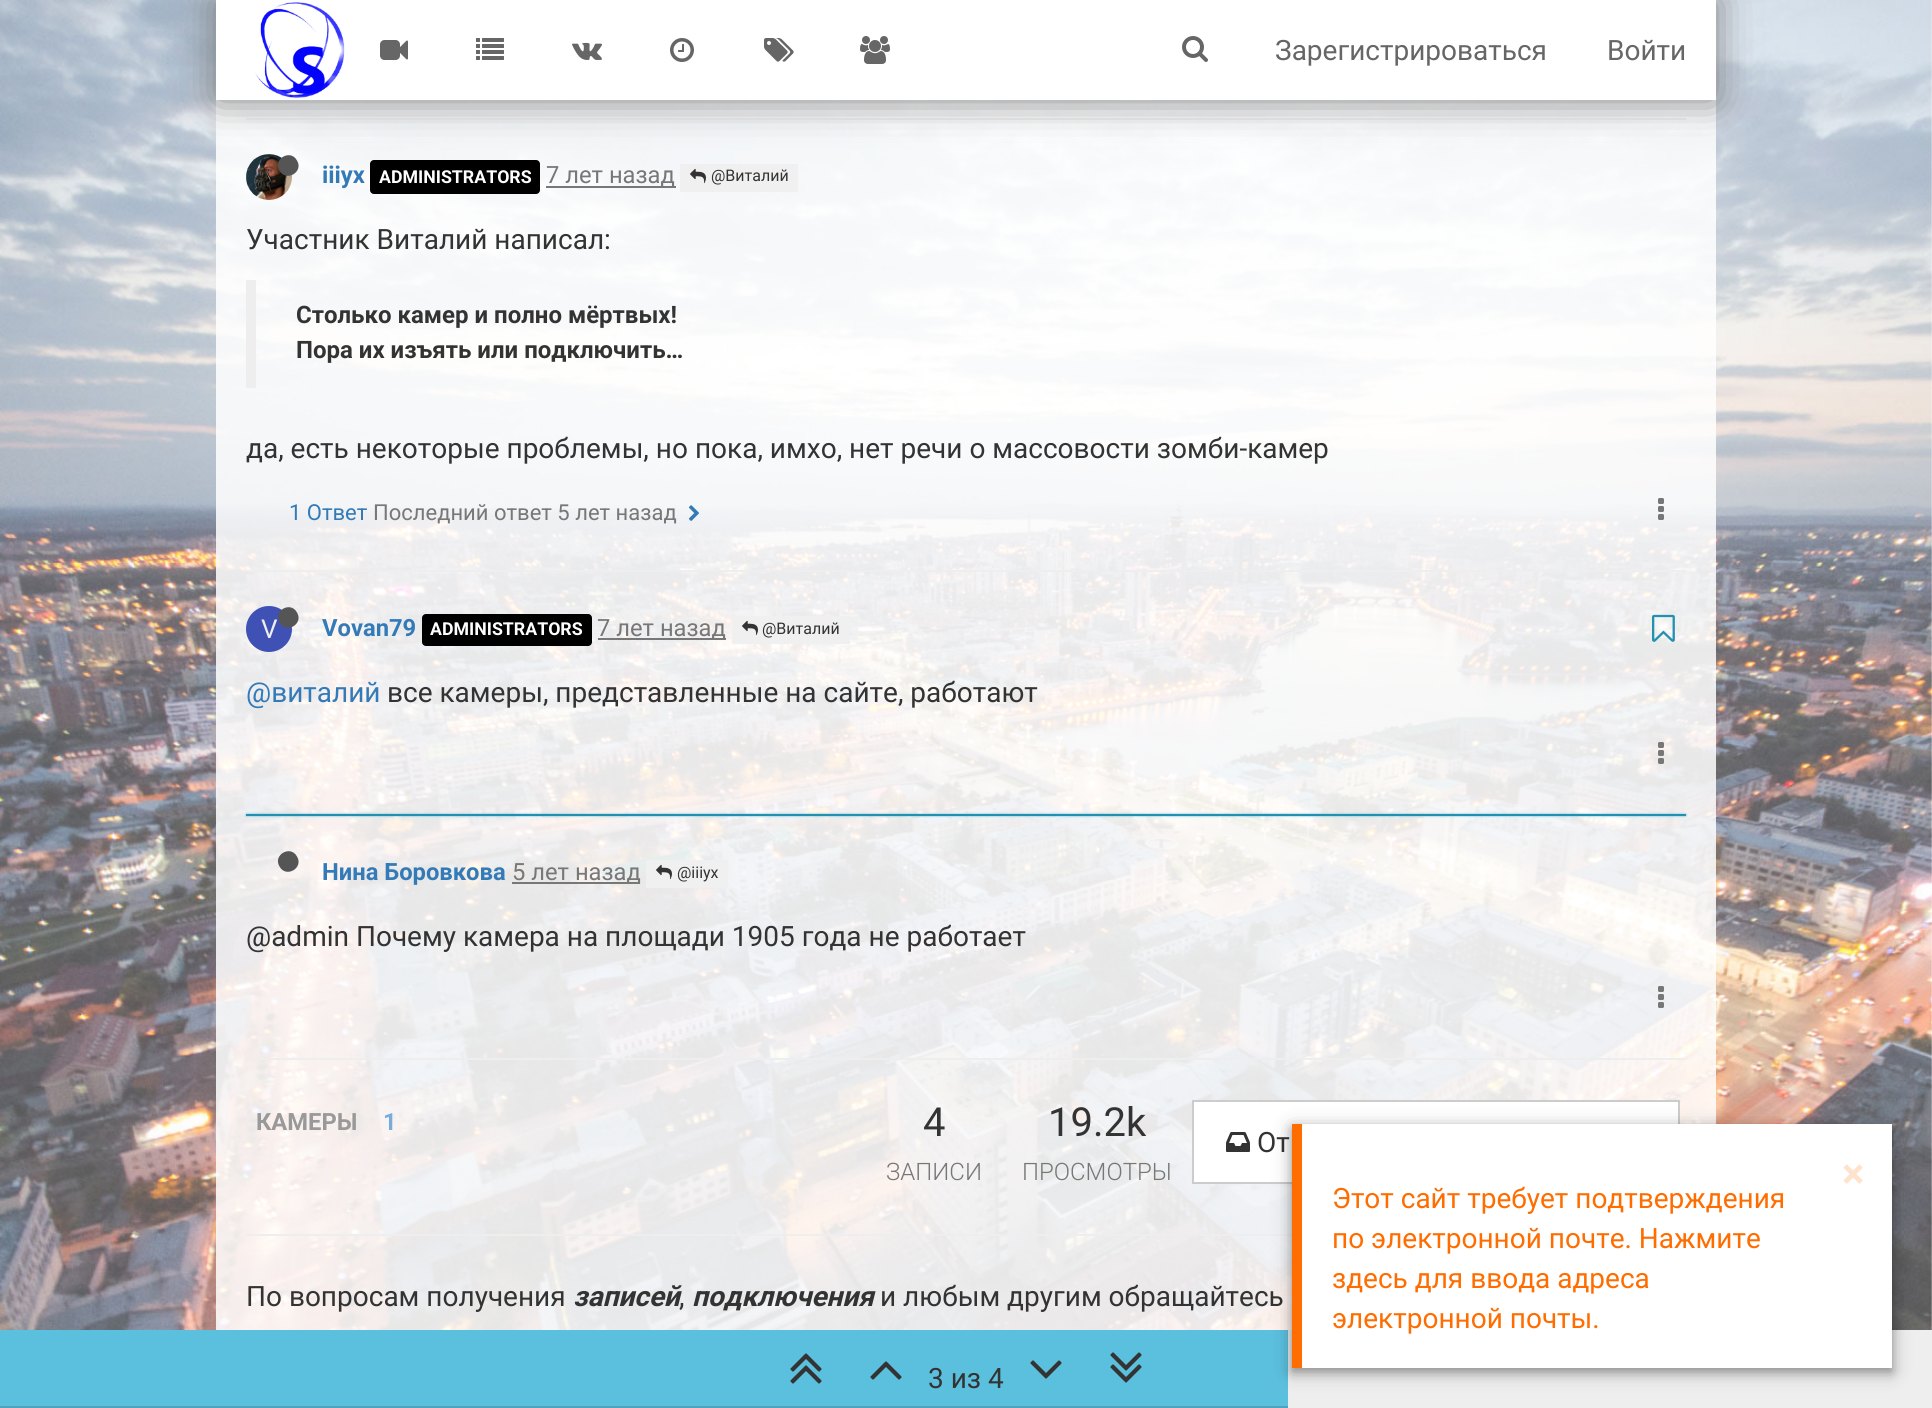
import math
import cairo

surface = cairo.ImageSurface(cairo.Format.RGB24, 1932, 1408)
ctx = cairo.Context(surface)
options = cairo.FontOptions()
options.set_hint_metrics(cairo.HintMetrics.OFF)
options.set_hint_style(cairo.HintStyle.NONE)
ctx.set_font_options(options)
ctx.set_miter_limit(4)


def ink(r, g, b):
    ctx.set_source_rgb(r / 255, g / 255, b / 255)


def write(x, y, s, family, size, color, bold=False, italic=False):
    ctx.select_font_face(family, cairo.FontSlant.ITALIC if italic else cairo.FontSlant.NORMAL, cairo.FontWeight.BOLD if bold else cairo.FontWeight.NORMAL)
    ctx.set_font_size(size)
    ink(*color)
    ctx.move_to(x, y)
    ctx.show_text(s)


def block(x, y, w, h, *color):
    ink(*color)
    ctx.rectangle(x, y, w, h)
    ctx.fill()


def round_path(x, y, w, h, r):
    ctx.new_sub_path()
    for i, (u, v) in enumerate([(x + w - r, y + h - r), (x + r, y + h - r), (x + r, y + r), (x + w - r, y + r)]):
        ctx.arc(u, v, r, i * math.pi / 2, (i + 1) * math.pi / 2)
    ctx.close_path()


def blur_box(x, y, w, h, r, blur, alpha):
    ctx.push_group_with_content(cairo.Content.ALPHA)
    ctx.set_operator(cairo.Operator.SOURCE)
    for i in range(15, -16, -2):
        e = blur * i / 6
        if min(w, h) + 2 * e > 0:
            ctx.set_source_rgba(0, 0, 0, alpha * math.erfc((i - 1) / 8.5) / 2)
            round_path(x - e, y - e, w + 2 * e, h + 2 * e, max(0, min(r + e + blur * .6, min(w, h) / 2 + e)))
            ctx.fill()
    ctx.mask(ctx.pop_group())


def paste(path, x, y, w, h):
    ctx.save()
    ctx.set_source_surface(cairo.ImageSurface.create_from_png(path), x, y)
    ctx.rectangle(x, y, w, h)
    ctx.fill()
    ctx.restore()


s1 = dict(family="Roboto", size=28, color=(102, 102, 102))
s2 = dict(family="Roboto", size=23.75, color=(51, 122, 183), bold=True)
s3 = dict(family="Roboto", size=17.75, color=(255, 255, 255), bold=True)
s4 = dict(family="Roboto", size=23.75, color=(119, 119, 119))
s5 = dict(family="Roboto", size=16, color=(51, 51, 51))
s6 = dict(family="Roboto", size=28, color=(51, 51, 51))
s7 = dict(family="Roboto", size=24, color=(51, 51, 51), bold=True)
s8 = dict(family="Roboto", size=22, color=(51, 122, 183))
s9 = dict(family="Roboto", size=22, color=(119, 119, 119))
s10 = dict(family="Roboto", size=26, color=(238, 238, 238))
s11 = dict(family="Roboto", size=28, color=(51, 122, 183))
s12 = dict(family="Roboto", size=23.75, color=(153, 153, 153), bold=True)
s13 = dict(family="Roboto", size=23.75, color=(120, 172, 217), bold=True)
s14 = dict(family="Roboto", size=40, color=(51, 51, 51))
s15 = dict(family="Roboto Light", size=24, color=(119, 119, 119))
s16 = dict(family="Roboto", size=28, color=(51, 51, 51), bold=True, italic=True)
s17 = dict(family="Roboto", size=42, color=(255, 226, 204), bold=True)
s18 = dict(family="Roboto", size=28, color=(255, 109, 0))

ink(255, 255, 255)
ctx.paint()
paste("pic1.png", 0, 0, 1932, 1330)
ctx.set_source_rgba(1, 1, 1, 0.85)
ctx.rectangle(216, 100, 1500, 1230)
ctx.fill()
block(246, 118, 1440, 2, 238, 238, 238)
paste("pic10.png", 246, 154, 46, 46)
ink(85, 85, 85)
ctx.new_path()
ctx.move_to(297, 160.5)
ctx.curve_to(304, 172, 286, 182.5, 279.5, 170.5)
ctx.curve_to(272.5, 159, 290.5, 148.5, 297, 160.5)
ctx.close_path()
ctx.fill()
ink(0, 0, 0)
round_path(370, 160, 170, 34, 4)
ctx.fill()
ink(128, 128, 128)
blur_box(216, 0, 1500, 100, 0, 20, 1)
block(216, 0, 1500, 100, 255, 255, 255)
paste("pic2.png", 255, 2, 90, 96)
paste("pic3.png", 380, 40, 28, 20)
paste("pic4.png", 476, 38, 28, 22)
paste("pic5.png", 572, 42, 30, 18)
paste("pic6.png", 670, 38, 24, 24)
paste("pic7.png", 764, 38, 30, 24)
paste("pic8.png", 860, 36, 30, 28)
paste("pic9.png", 1182, 36, 26, 26)
write(1275, 60, "Зарегистрироваться", **s1)
write(1607, 60, "Войти", **s1)
write(322, 183, "iiiyx", **s2)
write(379, 183, "ADMINISTRATORS", **s3)
block(546, 186, 130, 2, 119, 119, 119)
write(546, 183, "7 лет назад", **s4)
block(680, 164, 118, 28, 240, 240, 240)
paste("pic11.png", 690, 168, 16, 16)
write(711, 181, "@Виталий", **s5)
write(246, 249, "Участник Виталий написал:", **s6)
block(246, 280, 10, 108, 238, 238, 238)
write(296, 323, "Столько камер и полно мёртвых!", **s7)
write(296, 358, "Пора их изъять или подключить…", **s7)
write(246, 458, "да, есть некоторые проблемы, но пока, имхо, нет речи о массовости зомби-камер", **s6)
write(289, 520, "1 Ответ", **s8)
write(373, 520, "Последний ответ 5 лет назад", **s9)
paste("pic12.png", 688, 505, 11, 16)
paste("pic13.png", 1658, 498, 6, 22)
block(246, 570, 1440, 2, 238, 238, 238)
ink(63, 81, 181)
ctx.arc(269, 629, 23, 0, 2 * math.pi)
ctx.fill()
write(261, 638, "V", **s10)
ink(85, 85, 85)
ctx.new_path()
ctx.move_to(297, 612.5)
ctx.curve_to(304, 624, 286, 634.5, 279.5, 622.5)
ctx.curve_to(272.5, 611, 290.5, 600.5, 297, 612.5)
ctx.close_path()
ctx.fill()
write(322, 636, "Vovan79", **s2)
ink(0, 0, 0)
round_path(422, 614, 170, 32, 4)
ctx.fill()
write(430, 635, "ADMINISTRATORS", **s3)
block(598, 638, 128, 2, 119, 119, 119)
write(597, 636, "7 лет назад", **s4)
block(732, 616, 118, 28, 240, 240, 240)
paste("pic11.png", 742, 620, 16, 16)
write(762, 634, "@Виталий", **s5)
paste("pic14.png", 1652, 614, 23, 28)
write(246, 702, "@виталий", **s11)
write(387, 702, "все камеры, представленные на сайте, работают", **s6)
paste("pic15.png", 1658, 742, 6, 22)
ink(91, 192, 222)
blur_box(246, 814, 1440, 2, 0, 1, 1)
block(246, 814, 1440, 2, 35, 144, 176)
ink(85, 85, 85)
ctx.new_path()
ctx.move_to(297, 856.5)
ctx.curve_to(304, 868, 286, 878.5, 279.5, 866.5)
ctx.curve_to(272.5, 855, 290.5, 844.5, 297, 856.5)
ctx.close_path()
ctx.fill()
write(322, 880, "Нина Боровкова", **s2)
block(512, 882, 128, 2, 119, 119, 119)
write(512, 880, "5 лет назад", **s4)
block(646, 860, 82, 28, 240, 240, 240)
paste("pic11.png", 656, 864, 16, 16)
write(677, 878, "@iiiyx", **s5)
write(246, 946, "@admin Почему камера на площади 1905 года не работает", **s6)
paste("pic16.png", 1658, 986, 6, 22)
block(246, 1058, 1440, 2, 238, 238, 238)
write(256, 1130, "КАМЕРЫ", **s12)
write(383, 1130, "1", **s13)
write(923, 1136, "4", **s14)
write(886, 1180, "ЗАПИСИ", **s15)
write(1048, 1136, "19.2k", **s14)
write(1022, 1180, "ПРОСМОТРЫ", **s15)
ink(255, 255, 255)
ctx.rectangle(1193, 1101, 486, 82)
ctx.fill_preserve()
ink(204, 204, 204)
ctx.stroke()
paste("pic17.png", 1226, 1132, 24, 20)
write(1257, 1152, "От", **s6)
block(246, 1234, 1046, 2, 238, 238, 238)
block(1288, 1330, 644, 78, 238, 238, 238)
block(0, 1330, 1288, 76, 91, 192, 222)
block(0, 1406, 1288, 2, 77, 163, 189)
paste("pic18.png", 790, 1353, 32, 31)
paste("pic19.png", 870, 1361, 32, 19)
write(928, 1388, "3 из 4", **s6)
paste("pic20.png", 1030, 1360, 32, 19)
paste("pic21.png", 1110, 1352, 32, 31)
write(246, 1306, "По вопросам получения", **s6)
write(573, 1306, "записей", **s16)
write(692, 1306, "подключения", **s16)
write(880, 1306, "и любым другим обращайтесь", **s6)
write(679, 1306, ",", **s6)
ink(0, 0, 0)
blur_box(1292, 1128, 600, 244, 0, 10, 0.25)
blur_box(1292, 1128, 600, 244, 0, 5, 0.25)
block(1302, 1124, 590, 244, 255, 255, 255)
block(1292, 1124, 10, 244, 255, 109, 0)
write(1842, 1188, "×", **s17)
write(1332, 1208, "Этот сайт требует подтверждения", **s18)
write(1332, 1248, "по электронной почте. Нажмите", **s18)
write(1332, 1288, "здесь для ввода адреса", **s18)
write(1332, 1328, "электронной почты.", **s18)
surface.write_to_png("screenshot.png")
